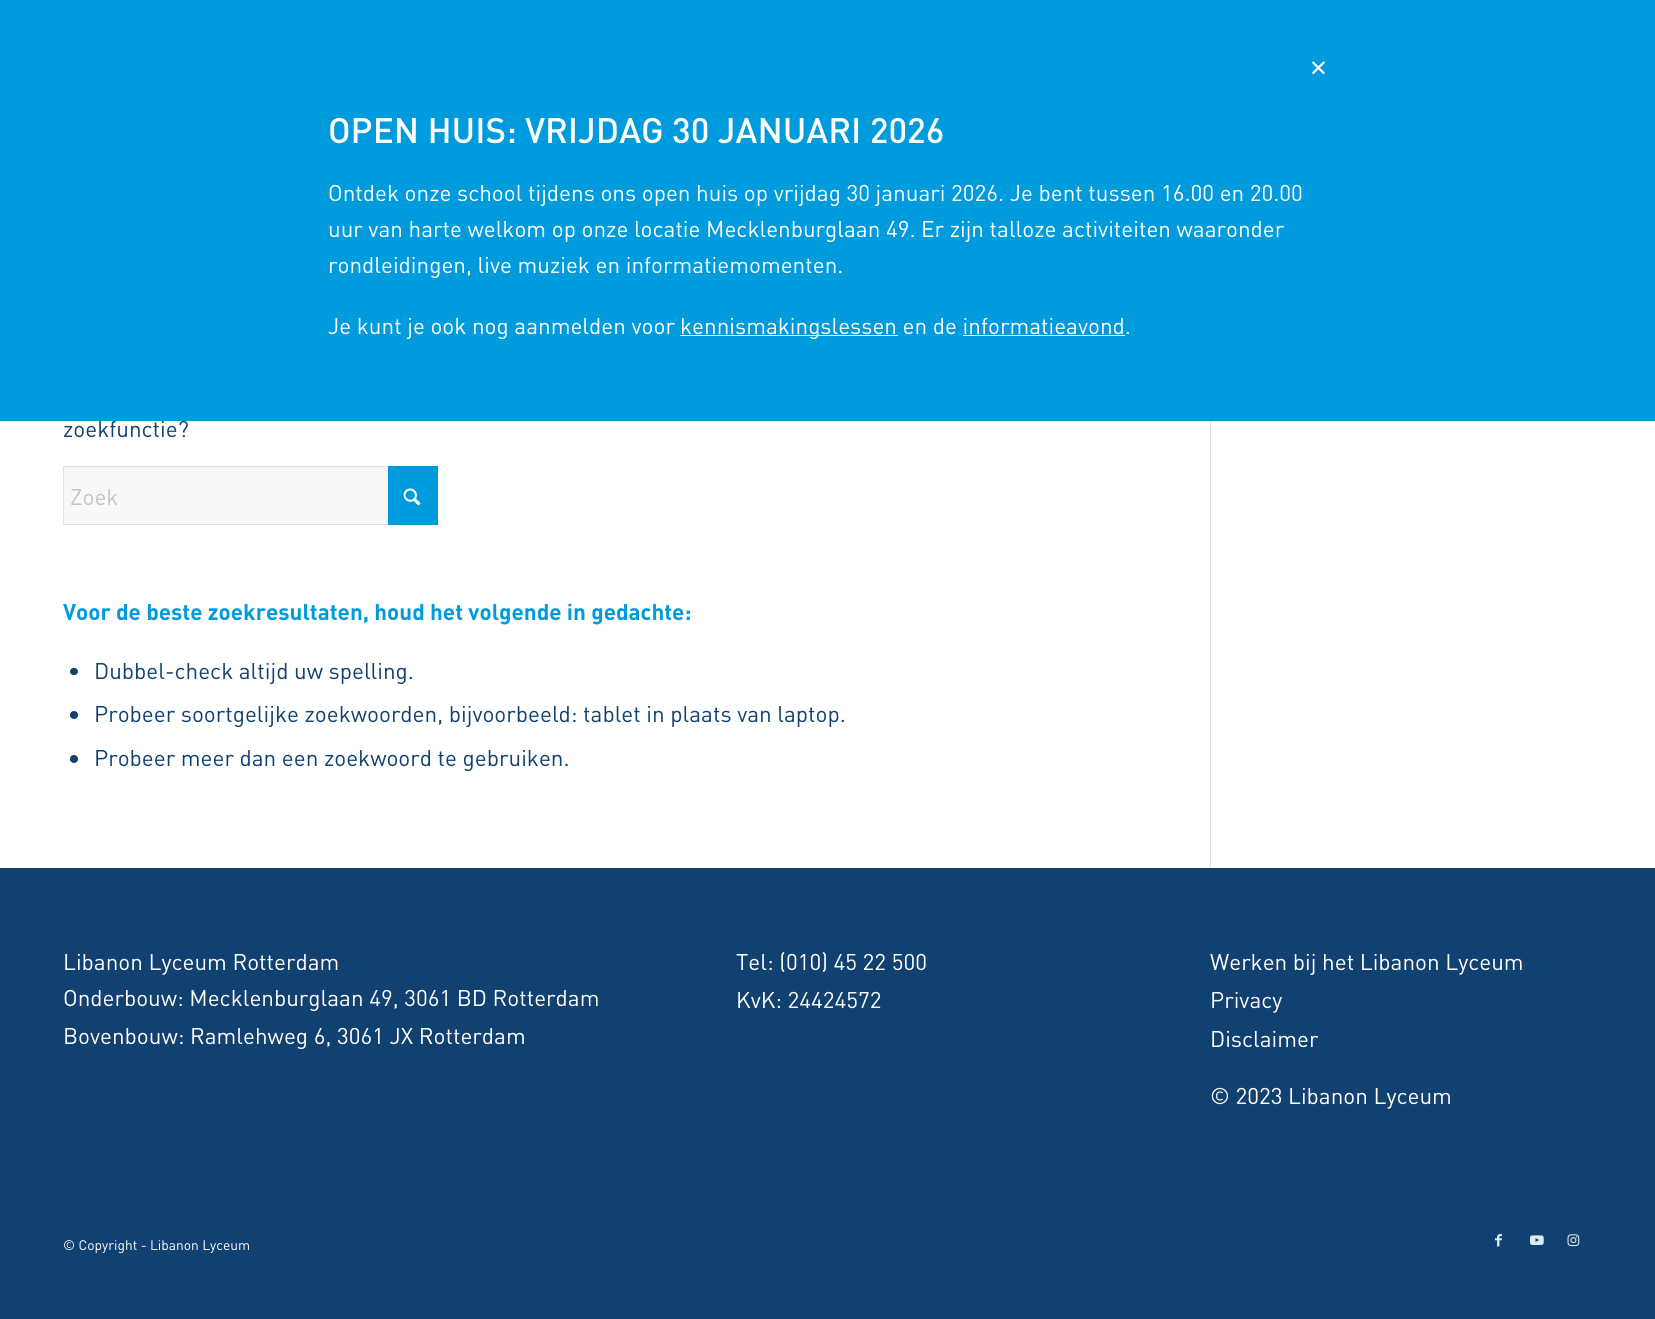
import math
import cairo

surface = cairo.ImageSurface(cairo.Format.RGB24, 1655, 1319)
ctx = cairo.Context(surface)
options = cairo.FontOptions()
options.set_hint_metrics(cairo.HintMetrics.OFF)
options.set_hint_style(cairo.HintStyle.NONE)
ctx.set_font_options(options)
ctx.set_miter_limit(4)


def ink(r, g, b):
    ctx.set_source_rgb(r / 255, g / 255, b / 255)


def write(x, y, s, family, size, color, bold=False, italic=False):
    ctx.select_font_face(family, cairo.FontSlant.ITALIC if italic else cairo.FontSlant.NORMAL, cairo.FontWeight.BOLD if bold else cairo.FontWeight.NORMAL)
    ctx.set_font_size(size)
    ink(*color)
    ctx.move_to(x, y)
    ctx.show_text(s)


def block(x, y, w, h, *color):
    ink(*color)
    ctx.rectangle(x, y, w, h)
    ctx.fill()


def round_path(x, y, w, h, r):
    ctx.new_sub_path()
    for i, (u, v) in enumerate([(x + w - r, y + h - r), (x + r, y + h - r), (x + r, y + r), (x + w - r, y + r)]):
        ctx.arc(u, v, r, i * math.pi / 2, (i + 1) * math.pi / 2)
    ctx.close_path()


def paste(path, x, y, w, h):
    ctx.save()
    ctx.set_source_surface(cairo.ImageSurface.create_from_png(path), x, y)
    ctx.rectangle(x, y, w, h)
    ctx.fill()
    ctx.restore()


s1 = dict(family="DIN", size=22.5, color=(17, 65, 112))
s2 = dict(family="DejaVu Sans", size=22.5, color=(255, 255, 255))
s3 = dict(family="DIN Medium", size=35, color=(255, 255, 255))
s4 = dict(family="DIN", size=22.5, color=(255, 255, 255))
s5 = dict(family="DIN", size=22.5, color=(197, 197, 197))
s6 = dict(family="DIN", size=22.5, color=(0, 155, 221), bold=True)
s7 = dict(family="DIN", size=13.75, color=(255, 255, 255))

ink(17, 65, 112)
ctx.paint()
block(0, 421, 1655, 447, 255, 255, 255)
write(63, 437, "zoekfunctie?", **s1)
block(0, 0, 1655, 421, 0, 155, 221)
write(1309, 76, "✕", **s2)
write(328, 143, "OPEN HUIS: VRIJDAG 30 JANUARI 2026", **s3)
write(328, 201, "Ontdek onze school tijdens ons open huis op vrijdag 30 januari 2026. Je bent tussen 16.00 en 20.00", **s4)
write(328, 237, "uur van harte welkom op onze locatie Mecklenburglaan 49. Er zijn talloze activiteiten waaronder", **s4)
write(328, 273, "rondleidingen, live muziek en informatiemomenten.", **s4)
write(328, 334, "Je kunt je ook nog aanmelden voor", **s4)
block(680, 335, 218, 1, 255, 255, 255)
write(680, 334, "kennismakingslessen en de informatieavond.", **s4)
block(963, 335, 162, 1, 255, 255, 255)
block(1210, 421, 1, 447, 225, 225, 225)
block(64, 467, 324, 57, 248, 248, 248)
ctx.rectangle(63.5, 466.5, 374, 58)
ink(225, 225, 225)
ctx.set_line_width(1)
ctx.stroke()
block(388, 466, 50, 59, 0, 155, 221)
write(70, 505, "Zoek", **s5)
paste("pic1.png", 403, 488, 18, 18)
write(63, 620, "Voor de beste zoekresultaten, houd het volgende in gedachte:", **s6)
ink(17, 65, 112)
round_path(70, 668, 8, 7, 3.5)
ctx.fill()
write(94, 679, "Dubbel-check altijd uw spelling.", **s1)
ctx.new_path()
ctx.arc(74, 715, 4, 0, 2 * math.pi)
ctx.fill()
write(94, 722, "Probeer soortgelijke zoekwoorden, bijvoorbeeld: tablet in plaats van laptop.", **s1)
ctx.new_path()
ctx.arc(74, 759, 4, 0, 2 * math.pi)
ctx.fill()
write(94, 766, "Probeer meer dan een zoekwoord te gebruiken.", **s1)
write(63, 970, "Libanon Lyceum Rotterdam", **s4)
write(63, 1006, "Onderbouw: Mecklenburglaan 49, 3061 BD Rotterdam", **s4)
write(63, 1044, "Bovenbouw: Ramlehweg 6, 3061 JX Rotterdam", **s4)
write(736, 970, "Tel: (010) 45 22 500", **s4)
write(736, 1008, "KvK: 24424572", **s4)
write(1210, 970, "Werken bij het Libanon Lyceum", **s4)
write(1210, 1008, "Privacy", **s4)
write(1210, 1047, "Disclaimer", **s4)
write(1210, 1104, "© 2023 Libanon Lyceum", **s4)
write(63, 1250, "© Copyright - Libanon Lyceum", **s7)
paste("pic2.png", 1495, 1234, 7, 13)
paste("pic3.png", 1530, 1235, 14, 10)
paste("pic4.png", 1567, 1234, 13, 13)
surface.write_to_png("screenshot.png")
